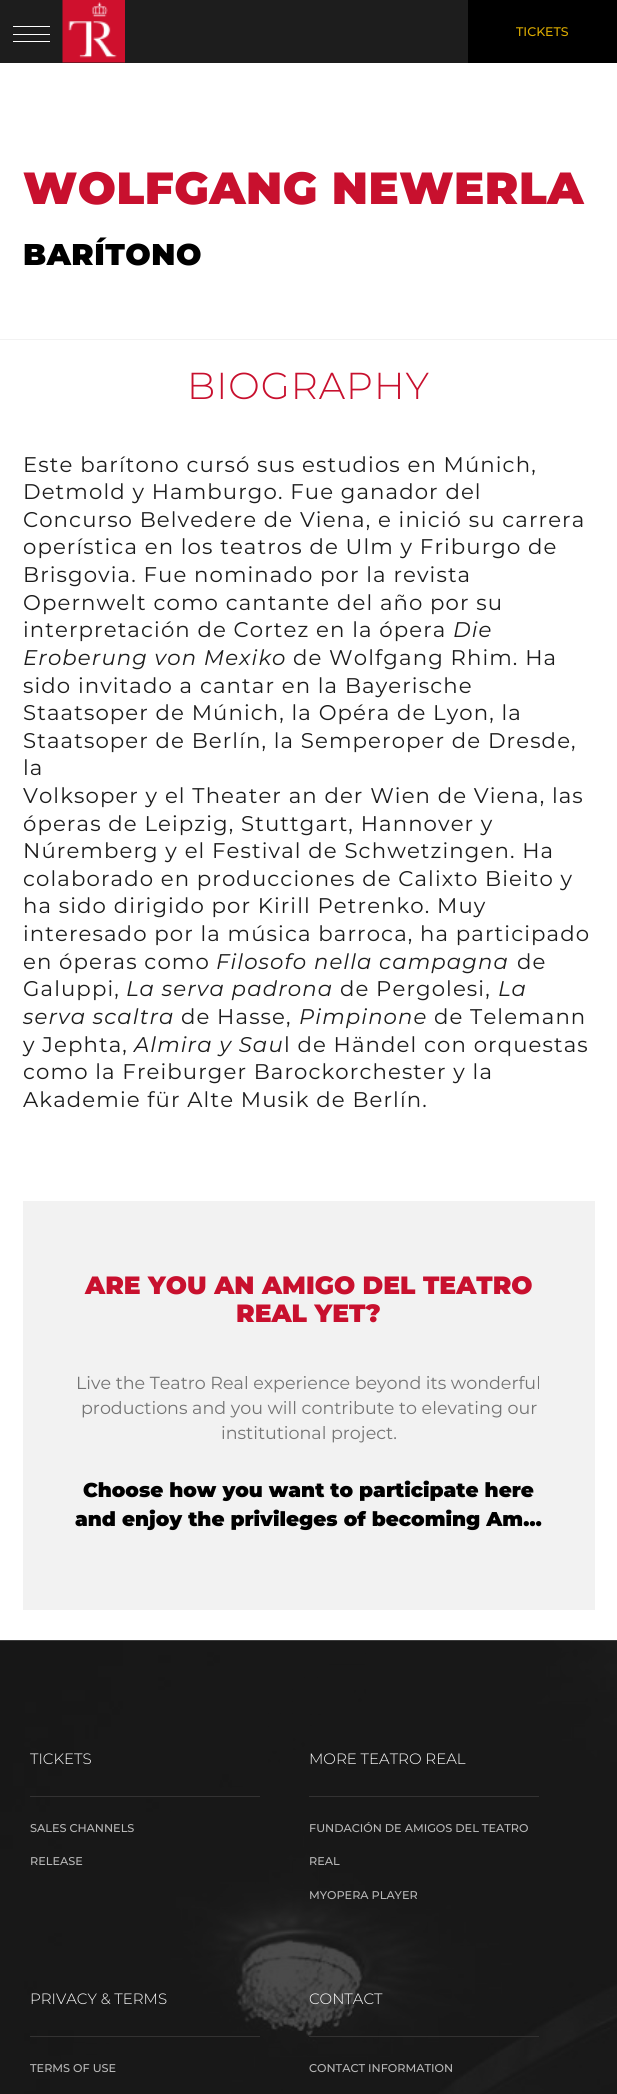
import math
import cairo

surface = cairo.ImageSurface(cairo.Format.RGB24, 617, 2094)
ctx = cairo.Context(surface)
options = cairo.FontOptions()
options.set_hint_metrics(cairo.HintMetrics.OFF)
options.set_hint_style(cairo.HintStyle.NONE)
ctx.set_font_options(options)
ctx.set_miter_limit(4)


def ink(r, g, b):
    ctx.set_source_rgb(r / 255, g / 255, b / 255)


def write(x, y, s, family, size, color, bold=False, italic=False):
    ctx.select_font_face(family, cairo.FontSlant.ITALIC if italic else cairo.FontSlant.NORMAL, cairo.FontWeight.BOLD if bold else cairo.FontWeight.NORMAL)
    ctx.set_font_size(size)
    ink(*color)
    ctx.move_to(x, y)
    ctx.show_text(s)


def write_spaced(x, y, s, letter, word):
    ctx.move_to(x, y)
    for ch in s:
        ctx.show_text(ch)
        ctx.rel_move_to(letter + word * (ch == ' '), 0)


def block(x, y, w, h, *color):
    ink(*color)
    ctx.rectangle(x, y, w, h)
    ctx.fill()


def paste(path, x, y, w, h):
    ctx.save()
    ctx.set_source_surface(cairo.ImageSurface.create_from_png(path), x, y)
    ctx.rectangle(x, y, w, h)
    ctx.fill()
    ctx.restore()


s1 = dict(family="Montserrat Medium", size=12.5, color=(218, 170, 0))
s2 = dict(family="Montserrat Black", size=25, color=(200, 16, 46))
s3 = dict(family="Montserrat", size=17.5, color=(116, 116, 116))
s4 = dict(family="Montserrat Black", size=20, color=(0, 0, 0))
s5 = dict(family="Montserrat Light", size=15, color=(255, 255, 255))
s6 = dict(family="Montserrat Medium", size=11.25, color=(185, 185, 185))

ink(255, 255, 255)
ctx.paint()
block(0, 1640, 617, 1, 74, 74, 74)
block(0, 0, 468, 63, 29, 29, 29)
block(13, 26, 37, 1, 255, 255, 255)
block(13, 34, 37, 1, 255, 255, 255)
block(13, 41, 37, 1, 255, 255, 255)
paste("pic1.png", 62, 0, 63, 63)
block(468, 0, 149, 63, 0, 0, 0)
write(516, 36, "TICKETS", **s1)
ctx.select_font_face("Montserrat Black")
ctx.set_font_size(45)
ink(200, 16, 46)
write_spaced(23, 204, "WOLFGANG NEWERLA", 0.5, 0)
ctx.set_font_size(30)
ink(0, 0, 0)
write_spaced(23, 265, "BARÍTONO", 0.5, 0)
block(0, 339, 617, 1, 242, 242, 242)
ctx.select_font_face("Montserrat Light")
ctx.set_font_size(37.5)
ink(200, 16, 46)
write_spaced(187, 399, "BIOGRAPHY", 1, 0)
ctx.select_font_face("Montserrat")
ctx.set_font_size(21.25)
ink(29, 29, 29)
write_spaced(23, 472, "Este barítono cursó sus estudios en Múnich,", 1.1, 0)
write_spaced(23, 499, "Detmold y Hamburgo. Fue ganador del", 1.1, 0)
write_spaced(23, 527, "Concurso Belvedere de Viena, e inició su carrera", 1.1, 0)
write_spaced(23, 554, "operística en los teatros de Ulm y Friburgo de", 1.1, 0)
write_spaced(23, 582, "Brisgovia. Fue nominado por la revista", 1.1, 0)
write_spaced(23, 610, "Opernwelt como cantante del año por su", 1.1, 0)
write_spaced(23, 637, "interpretación de Cortez en la ópera", 1.1, 0)
ctx.select_font_face("Montserrat", cairo.FontSlant.ITALIC)
write_spaced(453, 637, "Die", 1.1, 0)
write_spaced(23, 665, "Eroberung von Mexiko", 1.1, 0)
ctx.select_font_face("Montserrat")
write_spaced(293, 665, "de Wolfgang Rhim. Ha", 1.1, 0)
write_spaced(23, 693, "sido invitado a cantar en la Bayerische", 1.1, 0)
write_spaced(23, 720, "Staatsoper de Múnich, la Opéra de Lyon, la", 1.1, 0)
write_spaced(23, 748, "Staatsoper de Berlín, la Semperoper de Dresde,", 1.1, 0)
write_spaced(23, 775, "la", 1.1, 0)
write_spaced(23, 803, "Volksoper y el Theater an der Wien de Viena, las", 1.1, 0)
write_spaced(23, 831, "óperas de Leipzig, Stuttgart, Hannover y", 1.1, 0)
write_spaced(23, 858, "Núremberg y el Festival de Schwetzingen. Ha", 1.1, 0)
write_spaced(23, 886, "colaborado en producciones de Calixto Bieito y", 1.1, 0)
write_spaced(23, 913, "ha sido dirigido por Kirill Petrenko. Muy", 1.1, 0)
write_spaced(23, 941, "interesado por la música barroca, ha participado", 1.1, 0)
write_spaced(23, 969, "en óperas como", 1.1, 0)
ctx.select_font_face("Montserrat", cairo.FontSlant.ITALIC)
write_spaced(216, 969, "Filosofo nella campagna", 1.1, 0)
ctx.select_font_face("Montserrat")
write_spaced(517, 969, "de", 1.1, 0)
write_spaced(23, 996, "Galuppi,", 1.1, 0)
ctx.select_font_face("Montserrat", cairo.FontSlant.ITALIC)
write_spaced(126, 996, "La serva padrona", 1.1, 0)
ctx.select_font_face("Montserrat")
write_spaced(340, 996, "de Pergolesi,", 1.1, 0)
ctx.select_font_face("Montserrat", cairo.FontSlant.ITALIC)
write_spaced(498, 996, "La", 1.1, 0)
write_spaced(23, 1024, "serva scaltra", 1.1, 0)
ctx.select_font_face("Montserrat")
write_spaced(181, 1024, "de Hasse,", 1.1, 0)
ctx.select_font_face("Montserrat", cairo.FontSlant.ITALIC)
write_spaced(299, 1024, "Pimpinone", 1.1, 0)
ctx.select_font_face("Montserrat")
write_spaced(434, 1024, "de Telemann", 1.1, 0)
write_spaced(23, 1052, "y Jephta,", 1.1, 0)
ctx.select_font_face("Montserrat", cairo.FontSlant.ITALIC)
write_spaced(134, 1052, "Almira y Sau", 1.1, 0)
ctx.select_font_face("Montserrat")
write_spaced(284, 1052, "l de Händel con orquestas", 1.1, 0)
write_spaced(23, 1079, "como la Freiburger Barockorchester y la", 1.1, 0)
write_spaced(23, 1107, "Akademie für Alte Musik de Berlín.", 1.1, 0)
block(23, 1201, 572, 409, 242, 242, 242)
write(85, 1294, "ARE YOU AN AMIGO DEL TEATRO", **s2)
write(236, 1322, "REAL YET?", **s2)
write(76, 1389, "Live the Teatro Real experience beyond its wonderful", **s3)
write(81, 1414, "productions and you will contribute to elevating our", **s3)
write(221, 1439, "institutional project.", **s3)
write(83, 1497, "Choose how you want to participate here", **s4)
write(75, 1526, "and enjoy the privileges of becoming Am…", **s4)
paste("pic2.png", 0, 1640, 617, 454)
block(30, 1796, 230, 1, 51, 50, 50)
write(30, 1764, "TICKETS", **s5)
write(30, 1832, "SALES CHANNELS", **s6)
write(30, 1865, "RELEASE", **s6)
block(309, 1796, 230, 1, 51, 50, 50)
write(309, 1764, "MORE TEATRO REAL", **s5)
write(309, 1832, "FUNDACIÓN DE AMIGOS DEL TEATRO", **s6)
write(309, 1865, "REAL", **s6)
write(309, 1899, "MYOPERA PLAYER", **s6)
block(30, 2036, 230, 1, 51, 50, 50)
write(30, 2004, "PRIVACY & TERMS", **s5)
write(30, 2072, "TERMS OF USE", **s6)
block(309, 2036, 230, 1, 51, 50, 50)
write(309, 2004, "CONTACT", **s5)
write(309, 2072, "CONTACT INFORMATION", **s6)
surface.write_to_png("screenshot.png")
